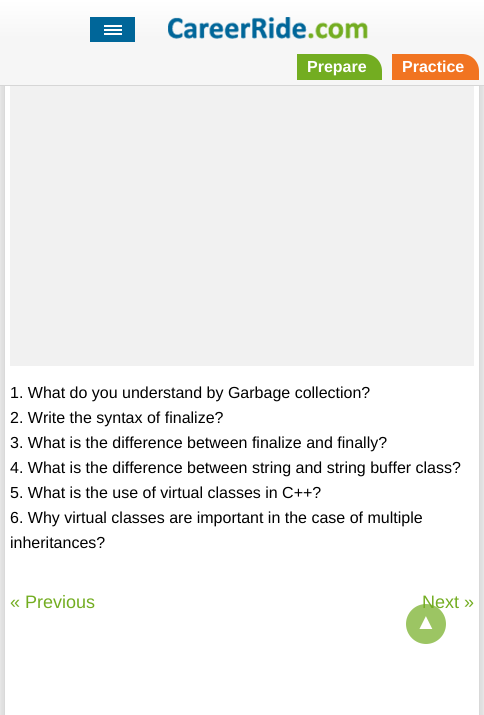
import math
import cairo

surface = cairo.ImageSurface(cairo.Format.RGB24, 484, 715)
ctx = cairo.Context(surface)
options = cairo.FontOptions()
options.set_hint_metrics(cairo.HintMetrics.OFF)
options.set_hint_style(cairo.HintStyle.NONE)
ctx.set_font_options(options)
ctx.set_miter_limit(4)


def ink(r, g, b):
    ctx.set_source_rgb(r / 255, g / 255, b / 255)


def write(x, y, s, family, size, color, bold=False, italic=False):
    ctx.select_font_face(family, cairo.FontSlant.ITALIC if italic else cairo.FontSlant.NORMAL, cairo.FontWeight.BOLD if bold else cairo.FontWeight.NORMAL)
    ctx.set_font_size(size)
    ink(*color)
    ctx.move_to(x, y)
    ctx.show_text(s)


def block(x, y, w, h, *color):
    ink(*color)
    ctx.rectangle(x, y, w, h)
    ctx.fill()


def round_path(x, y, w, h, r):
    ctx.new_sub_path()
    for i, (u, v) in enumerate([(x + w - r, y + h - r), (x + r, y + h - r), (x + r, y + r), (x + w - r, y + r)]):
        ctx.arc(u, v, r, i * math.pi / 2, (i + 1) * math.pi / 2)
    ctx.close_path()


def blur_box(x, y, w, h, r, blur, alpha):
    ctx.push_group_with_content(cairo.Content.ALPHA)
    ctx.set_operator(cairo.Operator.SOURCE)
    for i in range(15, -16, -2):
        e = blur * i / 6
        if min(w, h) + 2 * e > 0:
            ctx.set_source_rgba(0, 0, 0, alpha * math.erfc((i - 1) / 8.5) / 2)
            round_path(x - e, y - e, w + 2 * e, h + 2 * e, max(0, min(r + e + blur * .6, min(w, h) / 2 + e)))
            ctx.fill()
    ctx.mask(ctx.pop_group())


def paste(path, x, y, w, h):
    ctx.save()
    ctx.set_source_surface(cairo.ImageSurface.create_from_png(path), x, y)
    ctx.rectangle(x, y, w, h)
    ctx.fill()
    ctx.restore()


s1 = dict(family="Liberation Sans", size=16, color=(255, 255, 255), bold=True)
s2 = dict(family="Liberation Sans", size=16, color=(0, 0, 0))
s3 = dict(family="Liberation Sans", size=18, color=(115, 173, 33))
s4 = dict(family="Liberation Sans", size=22, color=(255, 255, 255), bold=True)

ink(241, 241, 241)
ctx.paint()
ink(0, 0, 0)
blur_box(5, -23, 474, 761, 0, 7.5, 0.2)
gradient = cairo.LinearGradient(242, 85, 242, 0)
gradient.add_color_stop_rgba(0.55, 0.965, 0.965, 0.965, 1)
gradient.add_color_stop_rgba(1, 1, 1, 1, 1)
ctx.set_source(gradient)
ctx.rectangle(0, 0, 484, 85)
ctx.fill()
block(0, 85, 484, 1, 214, 214, 214)
block(90, 17, 45, 25, 0, 102, 153)
paste("pic1.png", 104, 25, 18, 10)
paste("pic2.png", 168, 17, 200, 22)
ink(115, 173, 33)
ctx.new_path()
ctx.move_to(297, 54)
ctx.line_to(365, 54)
ctx.curve_to(374.5, 54, 382, 61.5, 382, 71)
ctx.line_to(382, 80)
ctx.line_to(297, 80)
ctx.close_path()
ctx.fill()
write(307, 72, "Prepare", **s1)
ink(241, 116, 33)
ctx.new_path()
ctx.move_to(392, 54)
ctx.line_to(462, 54)
ctx.curve_to(471.5, 54, 479, 61.5, 479, 71)
ctx.line_to(479, 80)
ctx.line_to(392, 80)
ctx.close_path()
ctx.fill()
write(402, 72, "Practice", **s1)
block(5, 86, 474, 629, 255, 255, 255)
block(10, 86, 464, 280, 241, 241, 241)
write(10, 398, "1. What do you understand by Garbage collection?", **s2)
write(10, 423, "2. Write the syntax of finalize?", **s2)
write(10, 448, "3. What is the difference between finalize and finally?", **s2)
write(10, 473, "4. What is the difference between string and string buffer class?", **s2)
write(10, 498, "5. What is the use of virtual classes in C++?", **s2)
write(10, 523, "6. Why virtual classes are important in the case of multiple", **s2)
write(10, 548, "inheritances?", **s2)
write(10, 608, "« Previous", **s3)
write(422, 608, "Next »", **s3)
ctx.set_source_rgba(0.451, 0.678, 0.129, 0.7)
ctx.new_path()
ctx.arc(426, 624, 20, 0, 2 * math.pi)
ctx.fill()
write(415, 629, "▲", **s4)
surface.write_to_png("screenshot.png")
